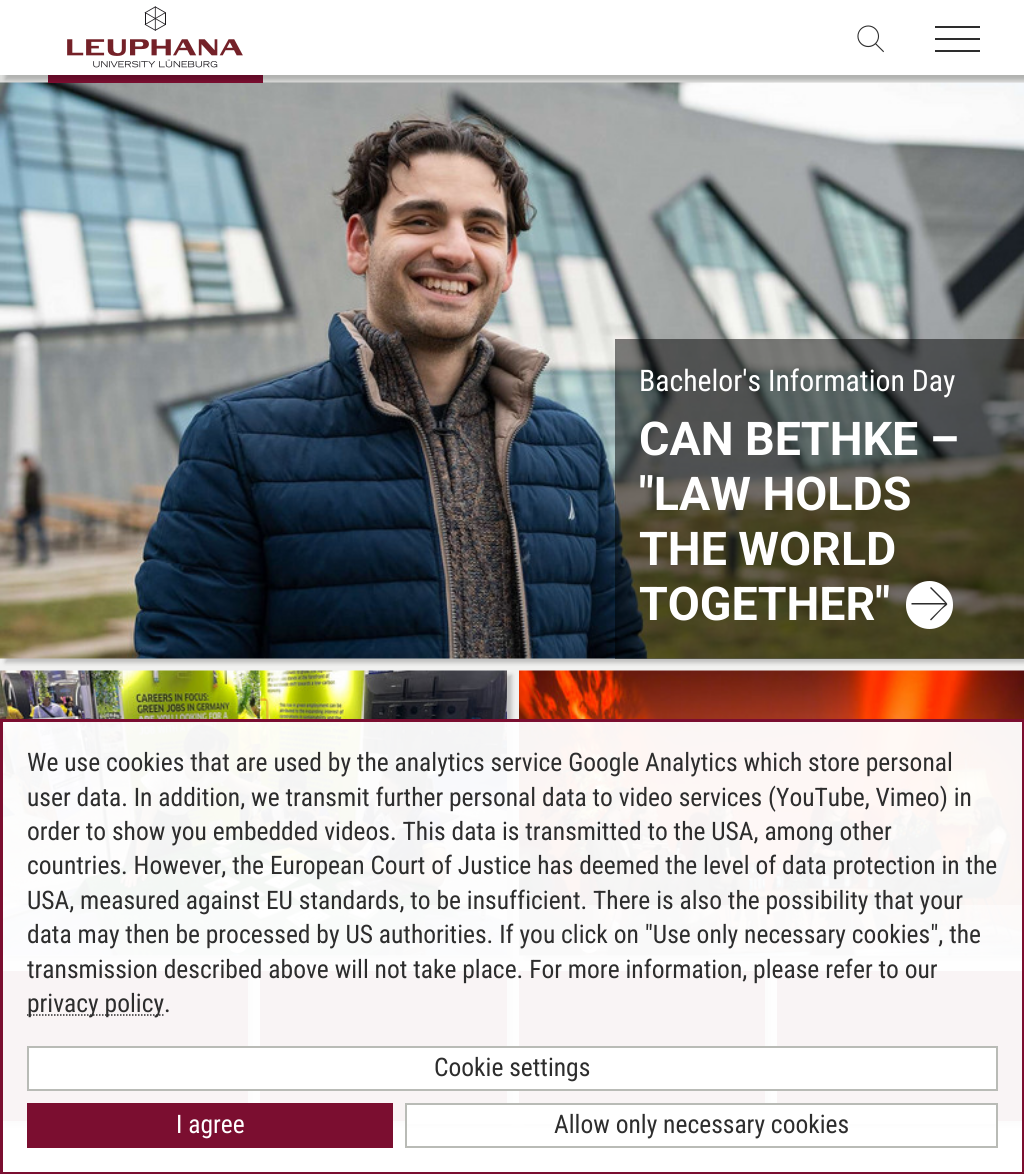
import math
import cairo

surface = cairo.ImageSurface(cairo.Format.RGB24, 1024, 1174)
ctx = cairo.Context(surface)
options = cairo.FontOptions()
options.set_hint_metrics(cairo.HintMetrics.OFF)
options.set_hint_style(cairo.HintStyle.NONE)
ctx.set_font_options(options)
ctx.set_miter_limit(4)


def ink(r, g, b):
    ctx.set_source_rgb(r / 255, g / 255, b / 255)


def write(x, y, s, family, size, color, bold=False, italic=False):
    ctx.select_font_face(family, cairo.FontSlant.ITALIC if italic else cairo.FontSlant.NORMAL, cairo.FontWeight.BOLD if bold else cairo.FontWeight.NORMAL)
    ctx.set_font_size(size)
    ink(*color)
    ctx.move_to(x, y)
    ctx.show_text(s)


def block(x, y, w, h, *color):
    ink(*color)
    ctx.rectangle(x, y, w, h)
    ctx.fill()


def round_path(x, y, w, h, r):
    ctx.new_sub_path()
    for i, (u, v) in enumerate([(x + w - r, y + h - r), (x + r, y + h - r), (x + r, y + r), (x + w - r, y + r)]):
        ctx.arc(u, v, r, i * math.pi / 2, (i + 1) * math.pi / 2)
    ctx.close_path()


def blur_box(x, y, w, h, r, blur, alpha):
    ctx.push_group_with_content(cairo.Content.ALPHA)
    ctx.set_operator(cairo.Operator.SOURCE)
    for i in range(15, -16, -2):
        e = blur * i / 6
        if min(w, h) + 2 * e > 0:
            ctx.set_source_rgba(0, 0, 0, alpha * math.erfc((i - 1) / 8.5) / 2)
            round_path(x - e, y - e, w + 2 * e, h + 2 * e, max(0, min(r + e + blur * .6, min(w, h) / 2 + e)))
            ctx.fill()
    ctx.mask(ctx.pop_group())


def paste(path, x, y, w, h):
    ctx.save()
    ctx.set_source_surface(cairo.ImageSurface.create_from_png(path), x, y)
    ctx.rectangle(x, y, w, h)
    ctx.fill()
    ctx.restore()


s1 = dict(family="Roboto Condensed", size=29.75, color=(255, 255, 255))
s2 = dict(family="Roboto", size=46.5, color=(255, 255, 255), bold=True)
s3 = dict(family="Roboto Condensed", size=25.5, color=(45, 45, 45))
s4 = dict(family="Roboto Condensed", size=25.5, color=(255, 255, 255))

ink(220, 221, 219)
ctx.paint()
block(0, 0, 1024, 75, 255, 255, 255)
paste("pic1.png", 67, 6, 176, 62)
block(0, 658, 1024, 470, 241, 241, 240)
ink(0, 0, 0)
blur_box(5, 87, 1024, 576, 0, 2, 0.2)
paste("pic3.png", 0, 82, 1024, 577)
block(48, 75, 215, 8, 123, 14, 48)
paste("pic2.png", 857, 25, 27, 28)
block(935, 38, 45, 2, 45, 45, 45)
block(935, 26, 45, 2, 45, 45, 45)
block(935, 50, 45, 2, 45, 45, 45)
ctx.save()
ctx.rectangle(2, 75, 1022, 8)
ctx.clip()
ink(0, 0, 0)
blur_box(5, -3, 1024, 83, 0, 2, 0.2)
ctx.restore()
ctx.set_source_rgba(0, 0, 0, 0.5)
ctx.rectangle(615, 339, 409, 320)
ctx.fill()
write(639, 391, "Bachelor's Information Day", **s1)
write(639, 455, "CAN BETHKE –", **s2)
write(639, 510, "\"LAW HOLDS", **s2)
write(639, 565, "THE WORLD", **s2)
write(639, 620, "TOGETHER\"", **s2)
round_path(906, 581, 47, 48, 23.5)
ctx.fill()
ink(45, 45, 45)
ctx.new_path()
ctx.move_to(930, 619.5)
ctx.line_to(931, 620.5)
ctx.line_to(941.5, 609.5)
ctx.curve_to(948, 603.5, 949, 605.5, 944.5, 600.5)
ctx.line_to(931, 587)
ctx.line_to(930, 588)
ctx.line_to(945, 603)
ctx.line_to(911.5, 603)
ctx.line_to(911.5, 604.5)
ctx.line_to(945, 604.5)
ctx.close_path()
ctx.fill()
ink(0, 0, 0)
blur_box(5, 675, 507, 285, 0, 2, 0.2)
paste("pic4.png", 0, 670, 507, 286)
ctx.set_source_rgba(1, 1, 1, 0.5)
ctx.rectangle(3, 905, 504, 51)
ctx.fill()
ink(255, 255, 255)
ctx.arc(237.5, 942.5, 10.5, 0, 2 * math.pi)
ctx.fill()
paste("pic5.png", 229, 934, 16, 16)
ink(0, 0, 0)
blur_box(524, 675, 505, 285, 0, 2, 0.2)
paste("pic6.png", 519, 670, 505, 286)
ctx.set_source_rgba(1, 1, 1, 0.5)
ctx.rectangle(519, 905, 503, 51)
ctx.fill()
ink(255, 255, 255)
ctx.arc(589.5, 942.5, 10.5, 0, 2 * math.pi)
ctx.fill()
paste("pic7.png", 581, 934, 17, 16)
ink(0, 0, 0)
blur_box(5, 975, 247, 150, 0, 2, 0.2)
block(3, 971, 245, 150, 123, 14, 48)
ink(0, 0, 0)
blur_box(264, 975, 248, 150, 0, 2, 0.2)
block(260, 971, 247, 150, 123, 14, 48)
ink(0, 0, 0)
blur_box(524, 975, 246, 150, 0, 2, 0.2)
block(519, 971, 246, 132, 123, 14, 48)
ink(0, 0, 0)
blur_box(782, 975, 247, 150, 0, 2, 0.2)
block(777, 971, 245, 150, 123, 14, 48)
block(3, 1128, 1019, 44, 255, 255, 255)
ctx.set_source_rgba(1, 1, 1, 0.95)
ctx.rectangle(3, 722, 1019, 406)
ctx.fill()
ctx.rectangle(1.5, 720.5, 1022, 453)
ink(123, 14, 48)
ctx.set_line_width(3)
ctx.stroke()
write(27, 771, "We use cookies that are used by the analytics service Google Analytics which store personal", **s3)
write(27, 806, "user data. In addition, we transmit further personal data to video services (YouTube, Vimeo) in", **s3)
write(27, 840, "order to show you embedded videos. This data is transmitted to the USA, among other", **s3)
write(27, 874, "countries. However, the European Court of Justice has deemed the level of data protection in the", **s3)
write(27, 909, "USA, measured against EU standards, to be insufficient. There is also the possibility that your", **s3)
write(27, 943, "data may then be processed by US authorities. If you click on \"Use only necessary cookies\", the", **s3)
write(27, 978, "transmission described above will not take place. For more information, please refer to our", **s3)
ctx.new_path()
ctx.move_to(27, 1015)
ctx.line_to(164, 1015)
ctx.set_line_width(1.5)
ctx.set_dash([1.5, 1.5])
ctx.stroke()
write(27, 1012, "privacy policy.", **s3)
ink(255, 255, 255)
ctx.rectangle(28, 1047, 969, 43)
ctx.fill_preserve()
ink(185, 187, 182)
ctx.set_line_width(2)
ctx.set_dash([])
ctx.stroke()
write(434, 1076, "Cookie settings", **s3)
block(27, 1103, 366, 45, 123, 14, 48)
write(176, 1133, "I agree", **s4)
block(407, 1105, 589, 19, 255, 255, 255)
ctx.rectangle(406, 1104, 591, 43)
ink(185, 187, 182)
ctx.stroke()
write(554, 1133, "Allow only necessary cookies", **s3)
surface.write_to_png("screenshot.png")
